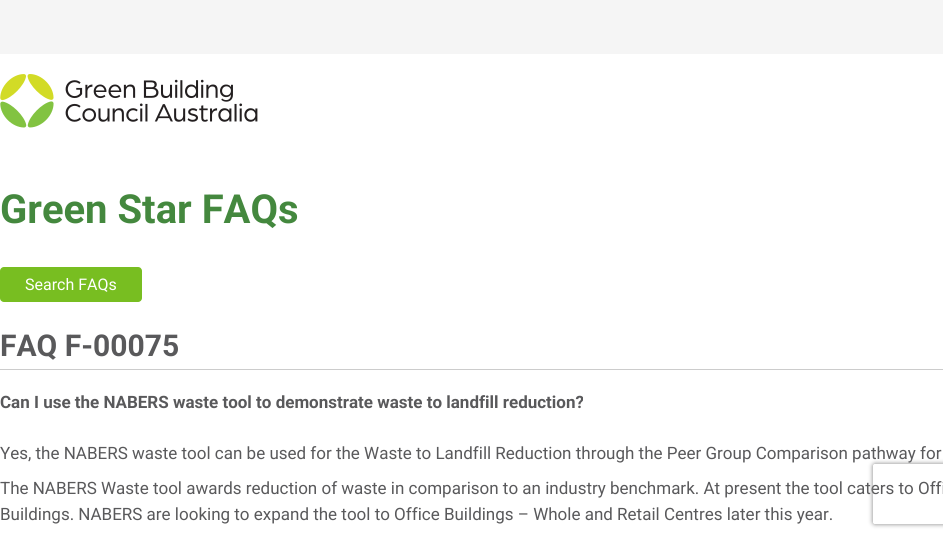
import math
import cairo

surface = cairo.ImageSurface(cairo.Format.RGB24, 943, 538)
ctx = cairo.Context(surface)
options = cairo.FontOptions()
options.set_hint_metrics(cairo.HintMetrics.OFF)
options.set_hint_style(cairo.HintStyle.NONE)
ctx.set_font_options(options)
ctx.set_miter_limit(4)


def ink(r, g, b):
    ctx.set_source_rgb(r / 255, g / 255, b / 255)


def write(x, y, s, family, size, color, bold=False, italic=False):
    ctx.select_font_face(family, cairo.FontSlant.ITALIC if italic else cairo.FontSlant.NORMAL, cairo.FontWeight.BOLD if bold else cairo.FontWeight.NORMAL)
    ctx.set_font_size(size)
    ink(*color)
    ctx.move_to(x, y)
    ctx.show_text(s)


def block(x, y, w, h, *color):
    ink(*color)
    ctx.rectangle(x, y, w, h)
    ctx.fill()


def round_path(x, y, w, h, r):
    ctx.new_sub_path()
    for i, (u, v) in enumerate([(x + w - r, y + h - r), (x + r, y + h - r), (x + r, y + r), (x + w - r, y + r)]):
        ctx.arc(u, v, r, i * math.pi / 2, (i + 1) * math.pi / 2)
    ctx.close_path()


def blur_box(x, y, w, h, r, blur, alpha):
    ctx.push_group_with_content(cairo.Content.ALPHA)
    ctx.set_operator(cairo.Operator.SOURCE)
    for i in range(15, -16, -2):
        e = blur * i / 6
        if min(w, h) + 2 * e > 0:
            ctx.set_source_rgba(0, 0, 0, alpha * math.erfc((i - 1) / 8.5) / 2)
            round_path(x - e, y - e, w + 2 * e, h + 2 * e, max(0, min(r + e + blur * .6, min(w, h) / 2 + e)))
            ctx.fill()
    ctx.mask(ctx.pop_group())


def paste(path, x, y, w, h):
    ctx.save()
    ctx.set_source_surface(cairo.ImageSurface.create_from_png(path), x, y)
    ctx.rectangle(x, y, w, h)
    ctx.fill()
    ctx.restore()


s1 = dict(family="Roboto", size=40, color=(68, 136, 62), bold=True)
s2 = dict(family="Roboto", size=16, color=(255, 255, 255))
s3 = dict(family="Roboto", size=30, color=(89, 89, 91), bold=True)
s4 = dict(family="Roboto", size=17, color=(89, 89, 91), bold=True)
s5 = dict(family="Roboto", size=17, color=(89, 89, 91))

ink(255, 255, 255)
ctx.paint()
block(0, 0, 943, 54, 245, 245, 245)
paste("pic1.png", 0, 74, 258, 54)
write(0, 223, "Green Star FAQs", **s1)
ink(120, 190, 33)
round_path(0, 267, 142, 35, 4)
ctx.fill()
write(25, 290, "Search FAQs", **s2)
write(0, 356, "FAQ F-00075", **s3)
block(0, 369, 943, 1, 204, 204, 204)
write(0, 408, "Can I use the NABERS waste tool to demonstrate waste to landfill reduction?", **s4)
write(0, 459, "Yes, the NABERS waste tool can be used for the Waste to Landfill Reduction through the Peer Group Comparison pathway for", **s5)
write(0, 494, "The NABERS Waste tool awards reduction of waste in comparison to an industry benchmark. At present the tool caters to Offi", **s5)
write(0, 520, "Buildings. NABERS are looking to expand the tool to Office Buildings – Whole and Retail Centres later this year.", **s5)
ctx.save()
ctx.set_fill_rule(cairo.FillRule.EVEN_ODD)
ctx.new_path()
ctx.move_to(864, 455)
ctx.line_to(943, 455)
ctx.line_to(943, 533)
ctx.line_to(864, 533)
ctx.close_path()
ctx.move_to(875, 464)
ctx.line_to(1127, 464)
ctx.curve_to(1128, 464, 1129, 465, 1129, 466)
ctx.line_to(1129, 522)
ctx.curve_to(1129, 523, 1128, 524, 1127, 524)
ctx.line_to(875, 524)
ctx.curve_to(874, 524, 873, 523, 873, 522)
ctx.line_to(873, 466)
ctx.curve_to(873, 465, 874, 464, 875, 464)
ctx.close_path()
ctx.clip()
ink(128, 128, 128)
blur_box(873, 464, 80, 60, 2, 2.5, 1)
ctx.restore()
surface.write_to_png("screenshot.png")
